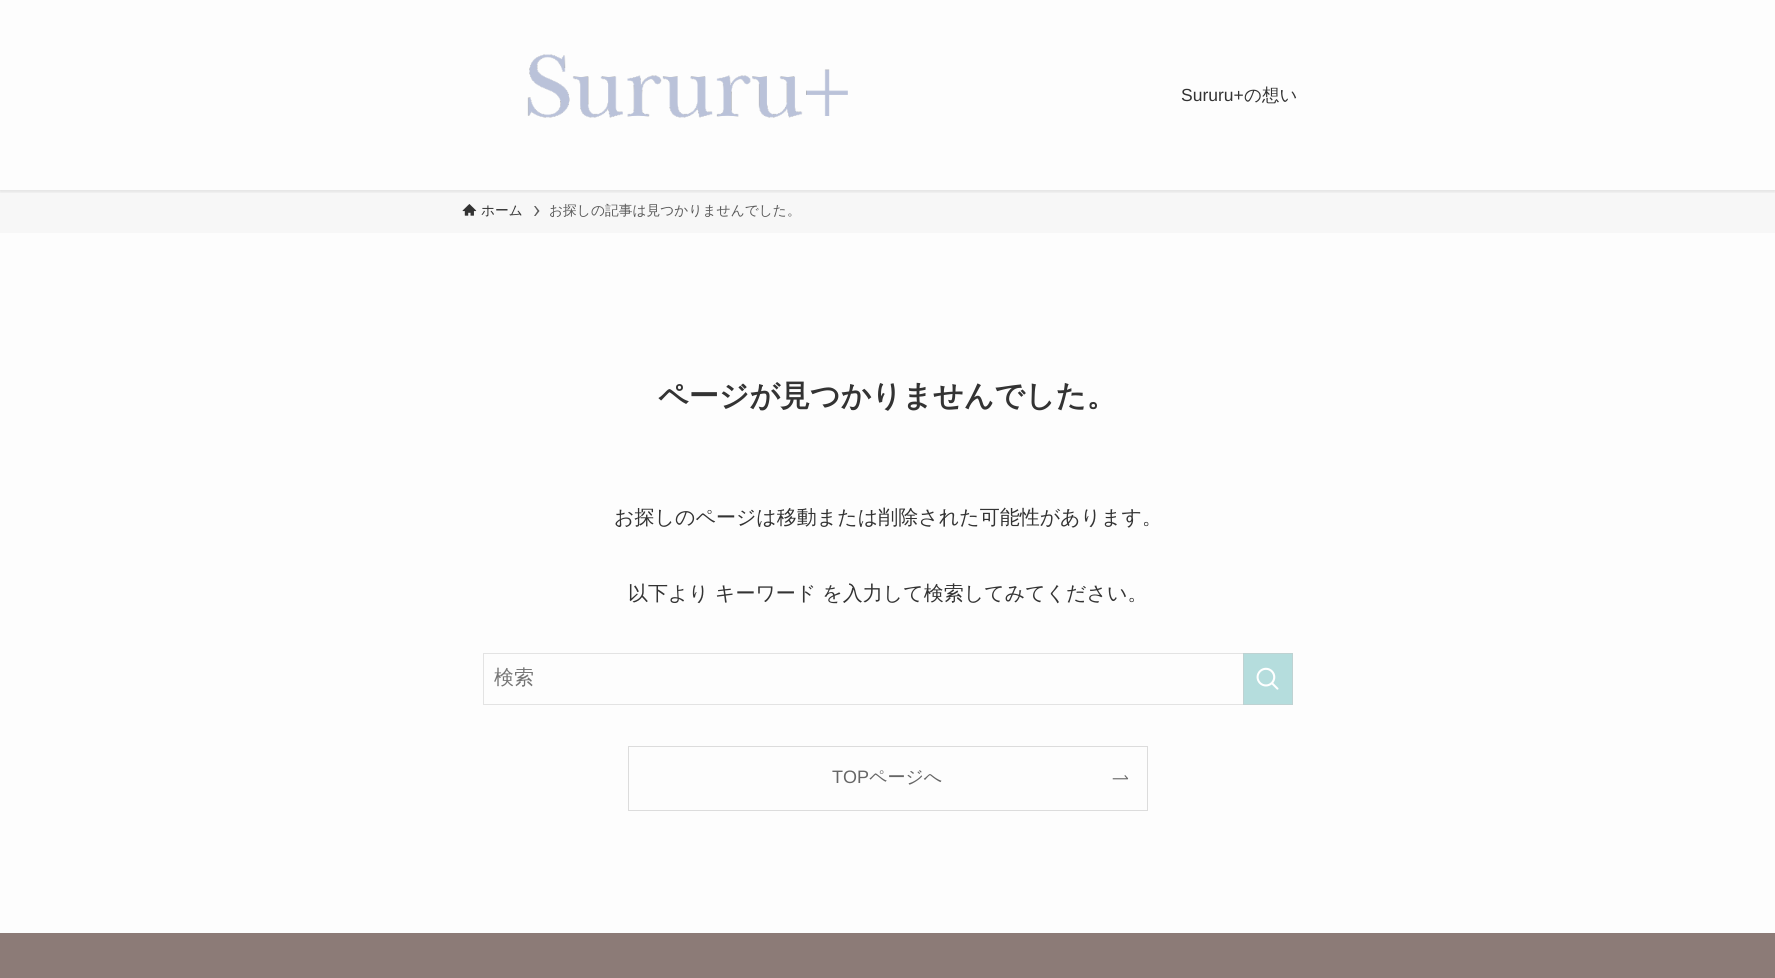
import math
import cairo

surface = cairo.ImageSurface(cairo.Format.RGB24, 1775, 978)
ctx = cairo.Context(surface)
options = cairo.FontOptions()
options.set_hint_metrics(cairo.HintMetrics.OFF)
options.set_hint_style(cairo.HintStyle.NONE)
ctx.set_font_options(options)
ctx.set_miter_limit(4)


def ink(r, g, b):
    ctx.set_source_rgb(r / 255, g / 255, b / 255)


def write(x, y, s, family, size, color, bold=False, italic=False):
    ctx.select_font_face(family, cairo.FontSlant.ITALIC if italic else cairo.FontSlant.NORMAL, cairo.FontWeight.BOLD if bold else cairo.FontWeight.NORMAL)
    ctx.set_font_size(size)
    ink(*color)
    ctx.move_to(x, y)
    ctx.show_text(s)


def block(x, y, w, h, *color):
    ink(*color)
    ctx.rectangle(x, y, w, h)
    ctx.fill()


def round_path(x, y, w, h, r):
    ctx.new_sub_path()
    for i, (u, v) in enumerate([(x + w - r, y + h - r), (x + r, y + h - r), (x + r, y + r), (x + w - r, y + r)]):
        ctx.arc(u, v, r, i * math.pi / 2, (i + 1) * math.pi / 2)
    ctx.close_path()


def blur_box(x, y, w, h, r, blur, alpha):
    ctx.push_group_with_content(cairo.Content.ALPHA)
    ctx.set_operator(cairo.Operator.SOURCE)
    for i in range(15, -16, -2):
        e = blur * i / 6
        if min(w, h) + 2 * e > 0:
            ctx.set_source_rgba(0, 0, 0, alpha * math.erfc((i - 1) / 8.5) / 2)
            round_path(x - e, y - e, w + 2 * e, h + 2 * e, max(0, min(r + e + blur * .6, min(w, h) / 2 + e)))
            ctx.fill()
    ctx.mask(ctx.pop_group())


def paste(path, x, y, w, h):
    ctx.save()
    ctx.set_source_surface(cairo.ImageSurface.create_from_png(path), x, y)
    ctx.rectangle(x, y, w, h)
    ctx.fill()
    ctx.restore()


s1 = dict(family="Liberation Sans", size=17.5, color=(51, 51, 51))
s2 = dict(family="WenQuanYi Zen Hei Medium", size=17.5, color=(51, 51, 51))
s3 = dict(family="WenQuanYi Zen Hei Medium", size=13.75, color=(51, 51, 51))
s4 = dict(family="WenQuanYi Zen Hei Medium", size=13.75, color=(90, 90, 90))
s5 = dict(family="WenQuanYi Zen Hei", size=30, color=(51, 51, 51), bold=True)
s6 = dict(family="WenQuanYi Zen Hei Medium", size=20, color=(51, 51, 51))
s7 = dict(family="WenQuanYi Zen Hei Medium", size=20, color=(117, 117, 117))
s8 = dict(family="Liberation Sans", size=18, color=(102, 102, 102))
s9 = dict(family="WenQuanYi Zen Hei Medium", size=18, color=(102, 102, 102))

ink(253, 253, 253)
ctx.paint()
block(0, 190, 1775, 43, 247, 247, 247)
ctx.save()
ctx.rectangle(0, 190, 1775, 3)
ctx.clip()
ink(0, 0, 0)
blur_box(0, 1, 1775, 190, 0, 2.5, 0.12)
ctx.restore()
paste("pic1.png", 527, 54, 321, 64)
write(1181, 101, "Sururu+", **s1)
write(1244, 101, "の想い", **s2)
paste("pic2.png", 462, 204, 15, 12)
write(481, 215, "ホーム", **s3)
ink(90, 90, 90)
ctx.new_path()
ctx.move_to(535.5, 206)
ctx.line_to(534, 206)
ctx.line_to(537.5, 211)
ctx.line_to(534, 216)
ctx.line_to(535.5, 216)
ctx.line_to(539.5, 211)
ctx.close_path()
ctx.fill()
write(549, 215, "お探しの記事は見つかりませんでした。", **s4)
write(658, 406, "ページが見つかりませんでした。", **s5)
write(614, 524, "お探しのページは移動または削除された可能性があります。", **s6)
write(628, 600, "以下より キーワード を入力して検索してみてください。", **s6)
ctx.rectangle(483.5, 653.5, 809, 51)
ink(227, 227, 227)
ctx.set_line_width(1)
ctx.stroke()
write(494, 684, "検索", **s7)
ink(181, 221, 221)
ctx.rectangle(1243.5, 653.5, 49, 51)
ctx.fill_preserve()
ink(190, 210, 210)
ctx.stroke()
paste("pic3.png", 1256, 667, 23, 23)
ctx.rectangle(628.5, 746.5, 519, 64)
ink(220, 220, 220)
ctx.stroke()
write(832, 783, "TOP", **s8)
write(869, 783, "ページへ", **s9)
paste("pic4.png", 1112, 775, 17, 5)
block(0, 933, 1775, 45, 140, 123, 119)
surface.write_to_png("screenshot.png")
